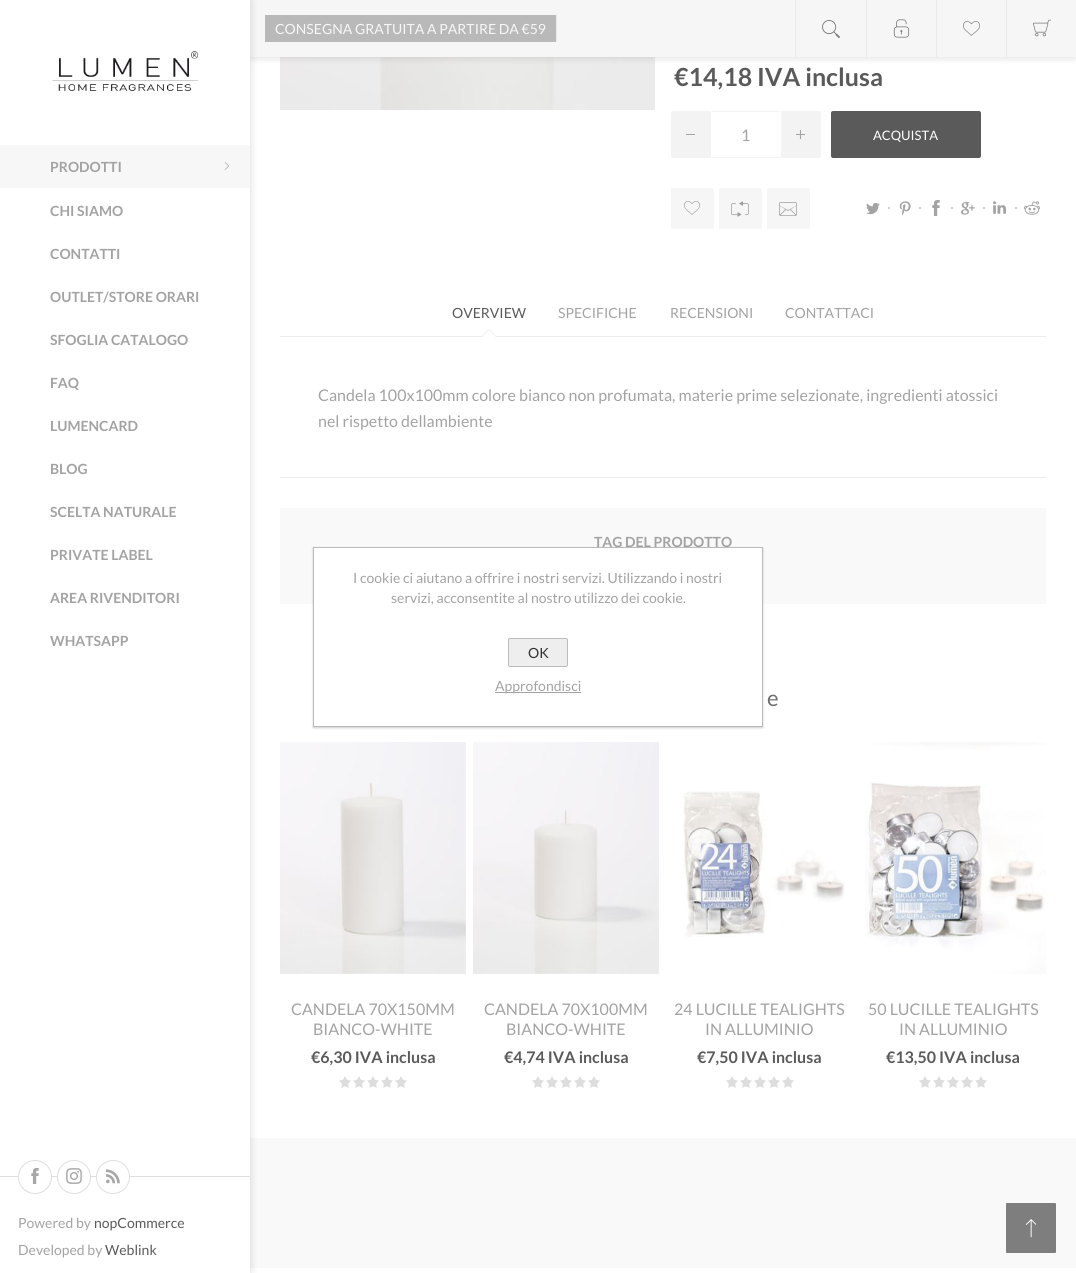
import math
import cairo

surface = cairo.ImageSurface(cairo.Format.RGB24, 1076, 1273)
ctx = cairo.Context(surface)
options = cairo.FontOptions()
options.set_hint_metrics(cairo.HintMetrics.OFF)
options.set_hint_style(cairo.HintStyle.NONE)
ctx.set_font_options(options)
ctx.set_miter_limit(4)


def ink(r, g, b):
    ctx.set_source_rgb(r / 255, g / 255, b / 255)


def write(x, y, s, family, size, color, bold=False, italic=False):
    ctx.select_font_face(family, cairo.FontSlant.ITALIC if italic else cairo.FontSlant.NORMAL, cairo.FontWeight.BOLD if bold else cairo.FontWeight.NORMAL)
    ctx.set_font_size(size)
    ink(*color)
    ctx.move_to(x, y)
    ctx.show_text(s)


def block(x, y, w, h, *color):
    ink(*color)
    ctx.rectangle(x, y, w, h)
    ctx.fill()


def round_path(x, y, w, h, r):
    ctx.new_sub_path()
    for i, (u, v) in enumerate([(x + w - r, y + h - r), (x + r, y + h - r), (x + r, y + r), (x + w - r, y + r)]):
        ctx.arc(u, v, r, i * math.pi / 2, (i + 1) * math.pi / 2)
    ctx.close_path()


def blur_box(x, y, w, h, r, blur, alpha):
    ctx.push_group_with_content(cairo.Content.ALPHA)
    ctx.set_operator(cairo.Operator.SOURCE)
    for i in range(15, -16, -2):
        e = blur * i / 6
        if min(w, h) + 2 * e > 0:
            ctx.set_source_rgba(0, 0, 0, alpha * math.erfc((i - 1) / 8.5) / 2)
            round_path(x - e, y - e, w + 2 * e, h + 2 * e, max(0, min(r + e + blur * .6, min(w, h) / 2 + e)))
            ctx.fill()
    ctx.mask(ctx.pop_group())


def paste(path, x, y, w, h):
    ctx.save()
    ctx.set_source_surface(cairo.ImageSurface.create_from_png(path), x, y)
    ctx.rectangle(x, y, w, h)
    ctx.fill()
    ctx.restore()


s1 = dict(family="Lato", size=14, color=(246, 246, 246))
s2 = dict(family="Lato", size=14, color=(163, 163, 163), bold=True)
s3 = dict(family="Lato", size=14, color=(163, 163, 163))
s4 = dict(family="Lato", size=14, color=(91, 90, 90))
s5 = dict(family="Lato", size=25, color=(91, 90, 90), bold=True)
s6 = dict(family="Lato", size=16, color=(163, 163, 163))
s7 = dict(family="Lato", size=13, color=(255, 255, 255))
s8 = dict(family="Lato", size=22, color=(111, 111, 111))
s9 = dict(family="Lato", size=16, color=(91, 90, 90), bold=True)
s10 = dict(family="Lato", size=14, color=(51, 51, 51))

ink(255, 255, 255)
ctx.paint()
paste("pic10.png", 280, 57, 375, 53)
ink(0, 0, 0)
blur_box(250, 0, 826, 57, 0, 4.5, 0.15)
block(250, 0, 826, 57, 246, 246, 246)
block(265, 15, 291, 27, 185, 185, 185)
block(556, 15, 1, 27, 234, 234, 234)
write(275, 34, "CONSEGNA GRATUITA A PARTIRE DA €59", **s1)
block(795, 0, 1, 57, 234, 234, 234)
paste("pic1.png", 822, 20, 18, 18)
block(866, 0, 1, 57, 234, 234, 234)
paste("pic2.png", 893, 19, 17, 19)
block(936, 0, 1, 57, 234, 234, 234)
paste("pic3.png", 963, 21, 17, 15)
block(1006, 0, 1, 57, 234, 234, 234)
paste("pic4.png", 1033, 19, 18, 18)
block(250, 1138, 826, 130, 249, 249, 249)
ink(0, 0, 0)
blur_box(0, 0, 250, 1273, 0, 4.5, 0.15)
block(0, 0, 250, 1273, 255, 255, 255)
paste("pic5.png", 52, 51, 146, 40)
block(0, 145, 250, 43, 247, 247, 247)
write(50, 172, "PRODOTTI", **s2)
paste("pic6.png", 224, 162, 5, 8)
write(50, 216, "CHI SIAMO", **s2)
write(50, 259, "CONTATTI", **s2)
write(50, 302, "OUTLET/STORE ORARI", **s2)
write(50, 345, "SFOGLIA CATALOGO", **s2)
write(50, 388, "FAQ", **s2)
write(50, 431, "LUMENCARD", **s2)
write(50, 474, "BLOG", **s2)
write(50, 517, "SCELTA NATURALE", **s2)
write(50, 560, "PRIVATE LABEL", **s2)
write(50, 603, "AREA RIVENDITORI", **s2)
write(50, 646, "WHATSAPP", **s2)
block(0, 1176, 250, 1, 222, 222, 222)
ink(255, 255, 255)
ctx.new_path()
ctx.arc(35, 1177, 16.5, 0, 2 * math.pi)
ctx.fill_preserve()
ink(222, 222, 222)
ctx.set_line_width(1)
ctx.stroke()
paste("pic7.png", 31, 1168, 8, 16)
ink(255, 255, 255)
ctx.arc(74, 1177, 16.5, 0, 2 * math.pi)
ctx.fill_preserve()
ink(222, 222, 222)
ctx.stroke()
paste("pic8.png", 66, 1168, 16, 16)
ink(255, 255, 255)
ctx.arc(113, 1177, 16.5, 0, 2 * math.pi)
ctx.fill_preserve()
ink(222, 222, 222)
ctx.stroke()
paste("pic9.png", 106, 1169, 14, 15)
write(18, 1228, "Powered by", **s3)
write(94, 1228, "nopCommerce", **s4)
write(18, 1255, "Developed by", **s3)
write(105, 1255, "Weblink", **s4)
write(674, 86, "€14,18 IVA inclusa", **s5)
ink(243, 243, 243)
ctx.new_path()
ctx.move_to(673, 111)
ctx.line_to(711, 111)
ctx.line_to(711, 158)
ctx.line_to(673, 158)
ctx.curve_to(672, 158, 671, 157, 671, 156)
ctx.line_to(671, 113)
ctx.curve_to(671, 112, 672, 111, 673, 111)
ctx.close_path()
ctx.fill()
block(686, 134, 9, 1, 163, 163, 163)
block(712, 111, 68, 1, 243, 243, 243)
block(712, 157, 68, 1, 243, 243, 243)
write(741, 141, "1", **s6)
ink(243, 243, 243)
ctx.new_path()
ctx.move_to(781, 111)
ctx.line_to(819, 111)
ctx.curve_to(820, 111, 821, 112, 821, 113)
ctx.line_to(821, 156)
ctx.curve_to(821, 157, 820, 158, 819, 158)
ctx.line_to(781, 158)
ctx.close_path()
ctx.fill()
paste("pic11.png", 796, 130, 9, 9)
ink(91, 90, 90)
round_path(831, 111, 150, 47, 2)
ctx.fill()
write(873, 140, "ACQUISTA", **s7)
ink(246, 246, 246)
round_path(671, 188, 43, 41, 2)
ctx.fill()
paste("pic12.png", 684, 201, 16, 14)
round_path(719, 188, 43, 41, 2)
ctx.fill()
paste("pic13.png", 731, 201, 18, 16)
round_path(767, 188, 43, 41, 2)
ctx.fill()
paste("pic14.png", 779, 202, 18, 14)
paste("pic15.png", 866, 203, 14, 12)
block(888, 207, 2, 2, 208, 208, 208)
paste("pic16.png", 899, 201, 12, 15)
block(919, 207, 2, 2, 208, 208, 208)
paste("pic17.png", 932, 200, 8, 16)
block(951, 207, 2, 2, 208, 208, 208)
paste("pic18.png", 961, 202, 14, 13)
block(983, 207, 2, 2, 208, 208, 208)
paste("pic19.png", 993, 201, 13, 13)
block(1015, 207, 2, 2, 208, 208, 208)
paste("pic20.png", 1024, 201, 16, 14)
block(280, 336, 766, 1, 236, 236, 236)
write(452, 318, "OVERVIEW", **s4)
ink(236, 236, 236)
ctx.new_path()
ctx.move_to(497, 337)
ctx.line_to(481, 337)
ctx.line_to(489, 329)
ctx.close_path()
ctx.fill()
ink(255, 255, 255)
ctx.new_path()
ctx.move_to(496, 337)
ctx.line_to(482, 337)
ctx.line_to(489, 330)
ctx.close_path()
ctx.fill()
write(558, 318, "SPECIFICHE", **s3)
write(670, 318, "RECENSIONI", **s3)
write(785, 318, "CONTATTACI", **s3)
block(280, 477, 766, 1, 236, 236, 236)
write(318, 401, "Candela 100x100mm colore bianco non profumata, materie prime selezionate, ingredienti atossici", **s6)
write(318, 427, "nel rispetto dellambiente", **s6)
block(280, 508, 766, 96, 249, 249, 249)
write(594, 547, "TAG DEL PRODOTTO", **s2)
write(767, 706, "e", **s8)
paste("pic21.png", 280, 742, 186, 232)
write(291, 1015, "CANDELA 70X150MM", **s6)
write(313, 1035, "BIANCO-WHITE", **s6)
write(311, 1063, "€6,30 IVA inclusa", **s9)
paste("pic22.png", 339, 1076, 68, 12)
paste("pic23.png", 473, 742, 186, 232)
write(484, 1015, "CANDELA 70X100MM", **s6)
write(506, 1035, "BIANCO-WHITE", **s6)
write(504, 1063, "€4,74 IVA inclusa", **s9)
paste("pic22.png", 532, 1076, 68, 12)
paste("pic24.png", 683, 791, 162, 146)
write(674, 1015, "24 LUCILLE TEALIGHTS", **s6)
write(705, 1035, "IN ALLUMINIO", **s6)
write(697, 1063, "€7,50 IVA inclusa", **s9)
paste("pic22.png", 726, 1076, 68, 12)
paste("pic25.png", 865, 742, 181, 232)
write(868, 1015, "50 LUCILLE TEALIGHTS", **s6)
write(899, 1035, "IN ALLUMINIO", **s6)
write(886, 1063, "€13,50 IVA inclusa", **s9)
paste("pic22.png", 919, 1076, 68, 12)
ink(0, 0, 0)
blur_box(313, 548, 450, 180, 0, 1, 0.2)
ink(255, 255, 255)
ctx.rectangle(313.5, 547.5, 449, 179)
ctx.fill_preserve()
ink(187, 187, 187)
ctx.stroke()
write(353, 583, "I cookie ci aiutano a offrire i nostri servizi. Utilizzando i nostri", **s3)
write(391, 603, "servizi, acconsentite al nostro utilizzo dei cookie.", **s3)
ink(238, 238, 238)
round_path(508.5, 638.5, 59, 28, 1.5)
ctx.fill_preserve()
ink(187, 187, 187)
ctx.stroke()
write(528, 658, "OK", **s10)
block(495, 692, 86, 1, 163, 163, 163)
write(495, 691, "Approfondisci", **s3)
ink(126, 126, 126)
round_path(1006, 1203, 50, 50, 1)
ctx.fill()
paste("pic26.png", 1025, 1219, 12, 19)
surface.write_to_png("screenshot.png")
